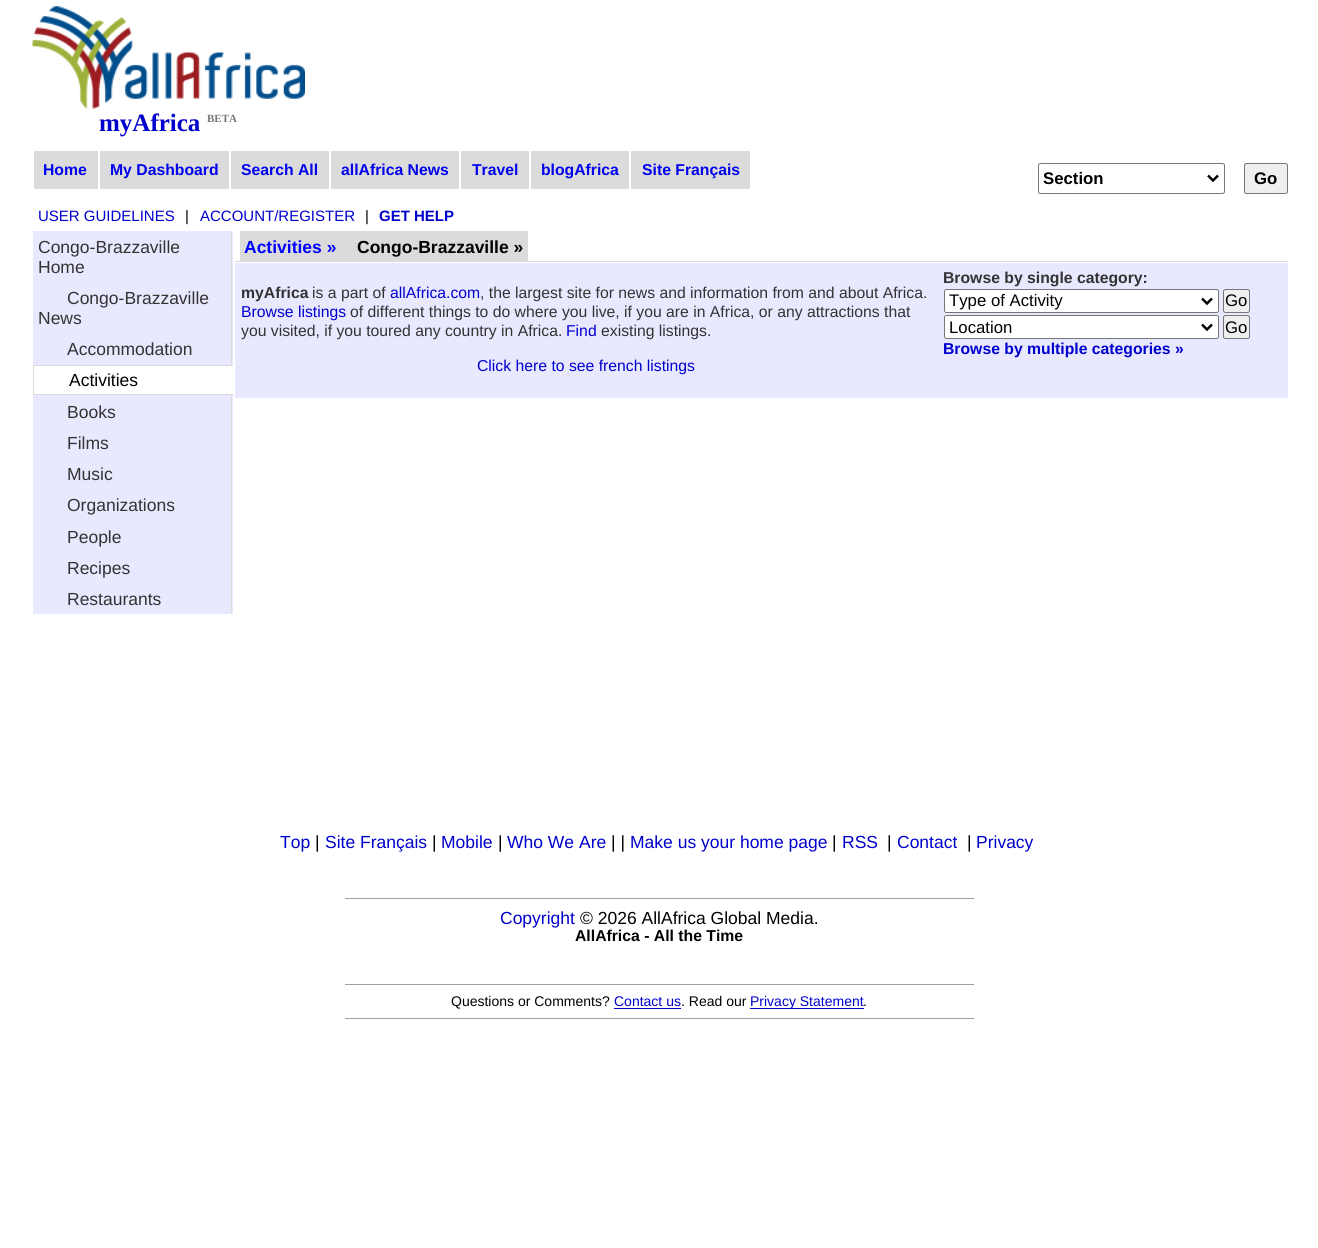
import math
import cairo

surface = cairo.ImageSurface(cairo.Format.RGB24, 1318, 1248)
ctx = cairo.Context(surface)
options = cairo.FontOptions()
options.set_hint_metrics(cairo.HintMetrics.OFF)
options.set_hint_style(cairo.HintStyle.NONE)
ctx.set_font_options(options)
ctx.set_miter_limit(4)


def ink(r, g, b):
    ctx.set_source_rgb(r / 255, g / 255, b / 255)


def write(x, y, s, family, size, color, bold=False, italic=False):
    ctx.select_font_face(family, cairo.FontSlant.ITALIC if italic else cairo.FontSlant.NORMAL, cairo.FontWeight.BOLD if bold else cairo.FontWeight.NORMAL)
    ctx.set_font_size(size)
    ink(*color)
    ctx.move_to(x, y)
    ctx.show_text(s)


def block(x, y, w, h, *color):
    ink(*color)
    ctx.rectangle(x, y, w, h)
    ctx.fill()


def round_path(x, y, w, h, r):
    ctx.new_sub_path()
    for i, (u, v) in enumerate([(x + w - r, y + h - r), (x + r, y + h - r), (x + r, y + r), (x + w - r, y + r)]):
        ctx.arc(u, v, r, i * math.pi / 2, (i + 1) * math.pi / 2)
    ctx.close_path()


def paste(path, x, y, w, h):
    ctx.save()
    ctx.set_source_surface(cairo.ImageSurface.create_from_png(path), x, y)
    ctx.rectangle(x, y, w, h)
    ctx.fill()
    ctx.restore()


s1 = dict(family="Liberation Serif", size=25, color=(0, 0, 205), bold=True)
s2 = dict(family="Liberation Serif", size=11, color=(119, 119, 119), bold=True)
s3 = dict(family="Liberation Sans", size=15.75, color=(0, 0, 238), bold=True)
s4 = dict(family="Liberation Sans", size=16.75, color=(0, 0, 0), bold=True)
s5 = dict(family="Liberation Sans", size=15, color=(0, 0, 205))
s6 = dict(family="Liberation Sans", size=15, color=(0, 0, 0))
s7 = dict(family="Liberation Sans", size=15, color=(0, 0, 205), bold=True)
s8 = dict(family="Liberation Sans", size=17.5, color=(51, 51, 51))
s9 = dict(family="Liberation Sans", size=17.5, color=(0, 0, 0))
s10 = dict(family="Liberation Sans", size=17.5, color=(0, 0, 255), bold=True)
s11 = dict(family="Liberation Sans", size=17.5, color=(0, 0, 0), bold=True)
s12 = dict(family="Liberation Sans", size=15.75, color=(51, 51, 51), bold=True)
s13 = dict(family="Liberation Sans", size=15.75, color=(51, 51, 51))
s14 = dict(family="Liberation Sans", size=15.75, color=(0, 0, 205))
s15 = dict(family="Liberation Sans", size=16.75, color=(0, 0, 0))
s16 = dict(family="Liberation Sans", size=15.75, color=(0, 0, 205), bold=True)
s17 = dict(family="Liberation Sans", size=17.5, color=(0, 0, 205))
s18 = dict(family="Liberation Sans", size=15.75, color=(0, 0, 0), bold=True)
s19 = dict(family="Liberation Sans", size=14, color=(0, 0, 0))
s20 = dict(family="Liberation Sans", size=14, color=(0, 0, 205))

ink(255, 255, 255)
ctx.paint()
paste("pic1.png", 32, 6, 273, 103)
write(99, 131, "myAfrica", **s1)
write(207, 122, "BETA", **s2)
block(34, 151, 64, 38, 219, 219, 219)
write(43, 175, "Home", **s3)
block(100, 151, 129, 38, 219, 219, 219)
write(110, 175, "My Dashboard", **s3)
block(231, 151, 98, 38, 219, 219, 219)
write(241, 175, "Search All", **s3)
block(331, 151, 128, 38, 219, 219, 219)
write(341, 175, "allAfrica News", **s3)
block(461, 151, 68, 38, 219, 219, 219)
write(472, 175, "Travel", **s3)
block(531, 151, 98, 38, 219, 219, 219)
write(541, 175, "blogAfrica", **s3)
block(631, 151, 119, 38, 219, 219, 219)
write(642, 175, "Site Français", **s3)
round_path(1038.5, 163.5, 186, 30, 2)
ink(118, 118, 118)
ctx.set_line_width(1)
ctx.stroke()
ctx.new_path()
ctx.move_to(1208, 175.5)
ctx.line_to(1213, 180.5)
ctx.line_to(1218, 175.5)
ink(0, 0, 0)
ctx.set_line_width(2.5)
ctx.stroke()
write(1043, 184, "Section", **s4)
ink(239, 239, 239)
round_path(1244.5, 163.5, 43, 30, 2)
ctx.fill_preserve()
ink(118, 118, 118)
ctx.set_line_width(1)
ctx.stroke()
write(1254, 184, "Go", **s4)
write(38, 221, "USER GUIDELINES", **s5)
write(185, 221, "|", **s6)
write(200, 221, "ACCOUNT/REGISTER", **s5)
write(365, 221, "|", **s6)
write(379, 221, "GET HELP", **s7)
block(33, 231, 200, 383, 232, 232, 255)
block(231, 231, 1, 383, 219, 219, 219)
write(38, 253, "Congo-Brazzaville", **s8)
write(38, 273, "Home", **s8)
write(67, 304, "Congo-Brazzaville", **s8)
write(38, 324, "News", **s8)
write(67, 355, "Accommodation", **s8)
block(34, 366, 199, 28, 255, 255, 255)
block(33, 365, 201, 1, 219, 219, 219)
block(233, 365, 1, 1, 255, 255, 255)
block(33, 394, 201, 1, 219, 219, 219)
block(33, 365, 1, 30, 219, 219, 219)
write(69, 386, "Activities", **s9)
write(67, 418, "Books", **s8)
write(67, 449, "Films", **s8)
write(67, 480, "Music", **s8)
write(67, 511, "Organizations", **s8)
write(67, 543, "People", **s8)
write(67, 574, "Recipes", **s8)
write(67, 605, "Restaurants", **s8)
block(235, 261, 1053, 1, 219, 219, 219)
block(240, 231, 288, 30, 219, 219, 219)
write(244, 253, "Activities »", **s10)
write(357, 253, "Congo-Brazzaville »", **s11)
block(235, 263, 1053, 135, 232, 232, 255)
write(241, 298, "myAfrica", **s12)
write(312, 298, "is a part of", **s13)
write(390, 298, "allAfrica.com", **s14)
write(480, 298, ", the largest site for news and information from and about Africa.", **s13)
write(241, 317, "Browse listings", **s14)
write(350, 317, "of different things to do where you live, if you are in Africa, or any attractions that", **s13)
write(241, 336, "you visited, if you toured any country in Africa.", **s13)
write(566, 336, "Find", **s14)
write(601, 336, "existing listings.", **s13)
write(943, 283, "Browse by single category:", **s12)
ink(255, 255, 255)
round_path(944.5, 289.5, 274, 23, 2)
ctx.fill_preserve()
ink(118, 118, 118)
ctx.stroke()
ctx.new_path()
ctx.move_to(1202, 298.5)
ctx.line_to(1207, 303.5)
ctx.line_to(1212, 298.5)
ink(0, 0, 0)
ctx.set_line_width(2.5)
ctx.stroke()
write(949, 306, "Type of Activity", **s15)
ink(239, 239, 239)
round_path(1223.5, 289.5, 26, 23, 2)
ctx.fill_preserve()
ink(118, 118, 118)
ctx.set_line_width(1)
ctx.stroke()
write(1225, 306, "Go", **s15)
ink(255, 255, 255)
round_path(944.5, 315.5, 274, 23, 2)
ctx.fill_preserve()
ink(118, 118, 118)
ctx.stroke()
ctx.new_path()
ctx.move_to(1202, 324.5)
ctx.line_to(1207, 329.5)
ctx.line_to(1212, 324.5)
ink(0, 0, 0)
ctx.set_line_width(2.5)
ctx.stroke()
write(949, 333, "Location", **s15)
ink(239, 239, 239)
round_path(1223.5, 315.5, 26, 23, 2)
ctx.fill_preserve()
ink(118, 118, 118)
ctx.set_line_width(1)
ctx.stroke()
write(1225, 333, "Go", **s15)
write(943, 354, "Browse by multiple categories »", **s16)
write(477, 371, "Click here to see french listings", **s14)
write(280, 848, "Top", **s17)
write(315, 848, "|", **s9)
write(325, 848, "Site Français", **s17)
write(432, 848, "|", **s9)
write(441, 848, "Mobile", **s17)
write(498, 848, "|", **s9)
write(507, 848, "Who We Are", **s17)
write(611, 848, "| |", **s9)
write(630, 848, "Make us your home page", **s17)
write(832, 848, "|", **s9)
write(842, 848, "RSS", **s17)
write(887, 848, "|", **s9)
write(897, 848, "Contact", **s17)
write(967, 848, "|", **s9)
write(976, 848, "Privacy", **s17)
block(345, 898, 630, 1, 159, 159, 159)
block(974, 898, 1, 1, 238, 238, 238)
write(500, 924, "Copyright", **s17)
write(580, 924, "© 2026 AllAfrica Global Media.", **s9)
write(575, 941, "AllAfrica - All the Time", **s18)
block(345, 984, 630, 1, 159, 159, 159)
block(974, 984, 1, 1, 238, 238, 238)
write(451, 1006, "Questions or Comments?", **s19)
write(614, 1006, "Contact us", **s20)
block(614, 1008, 67, 1, 0, 0, 205)
write(681, 1006, ". Read our", **s19)
block(750, 1008, 114, 1, 0, 0, 205)
write(750, 1006, "Privacy Statement", **s20)
write(863, 1006, ".", **s19)
block(345, 1018, 630, 1, 159, 159, 159)
block(974, 1018, 1, 1, 238, 238, 238)
surface.write_to_png("screenshot.png")
